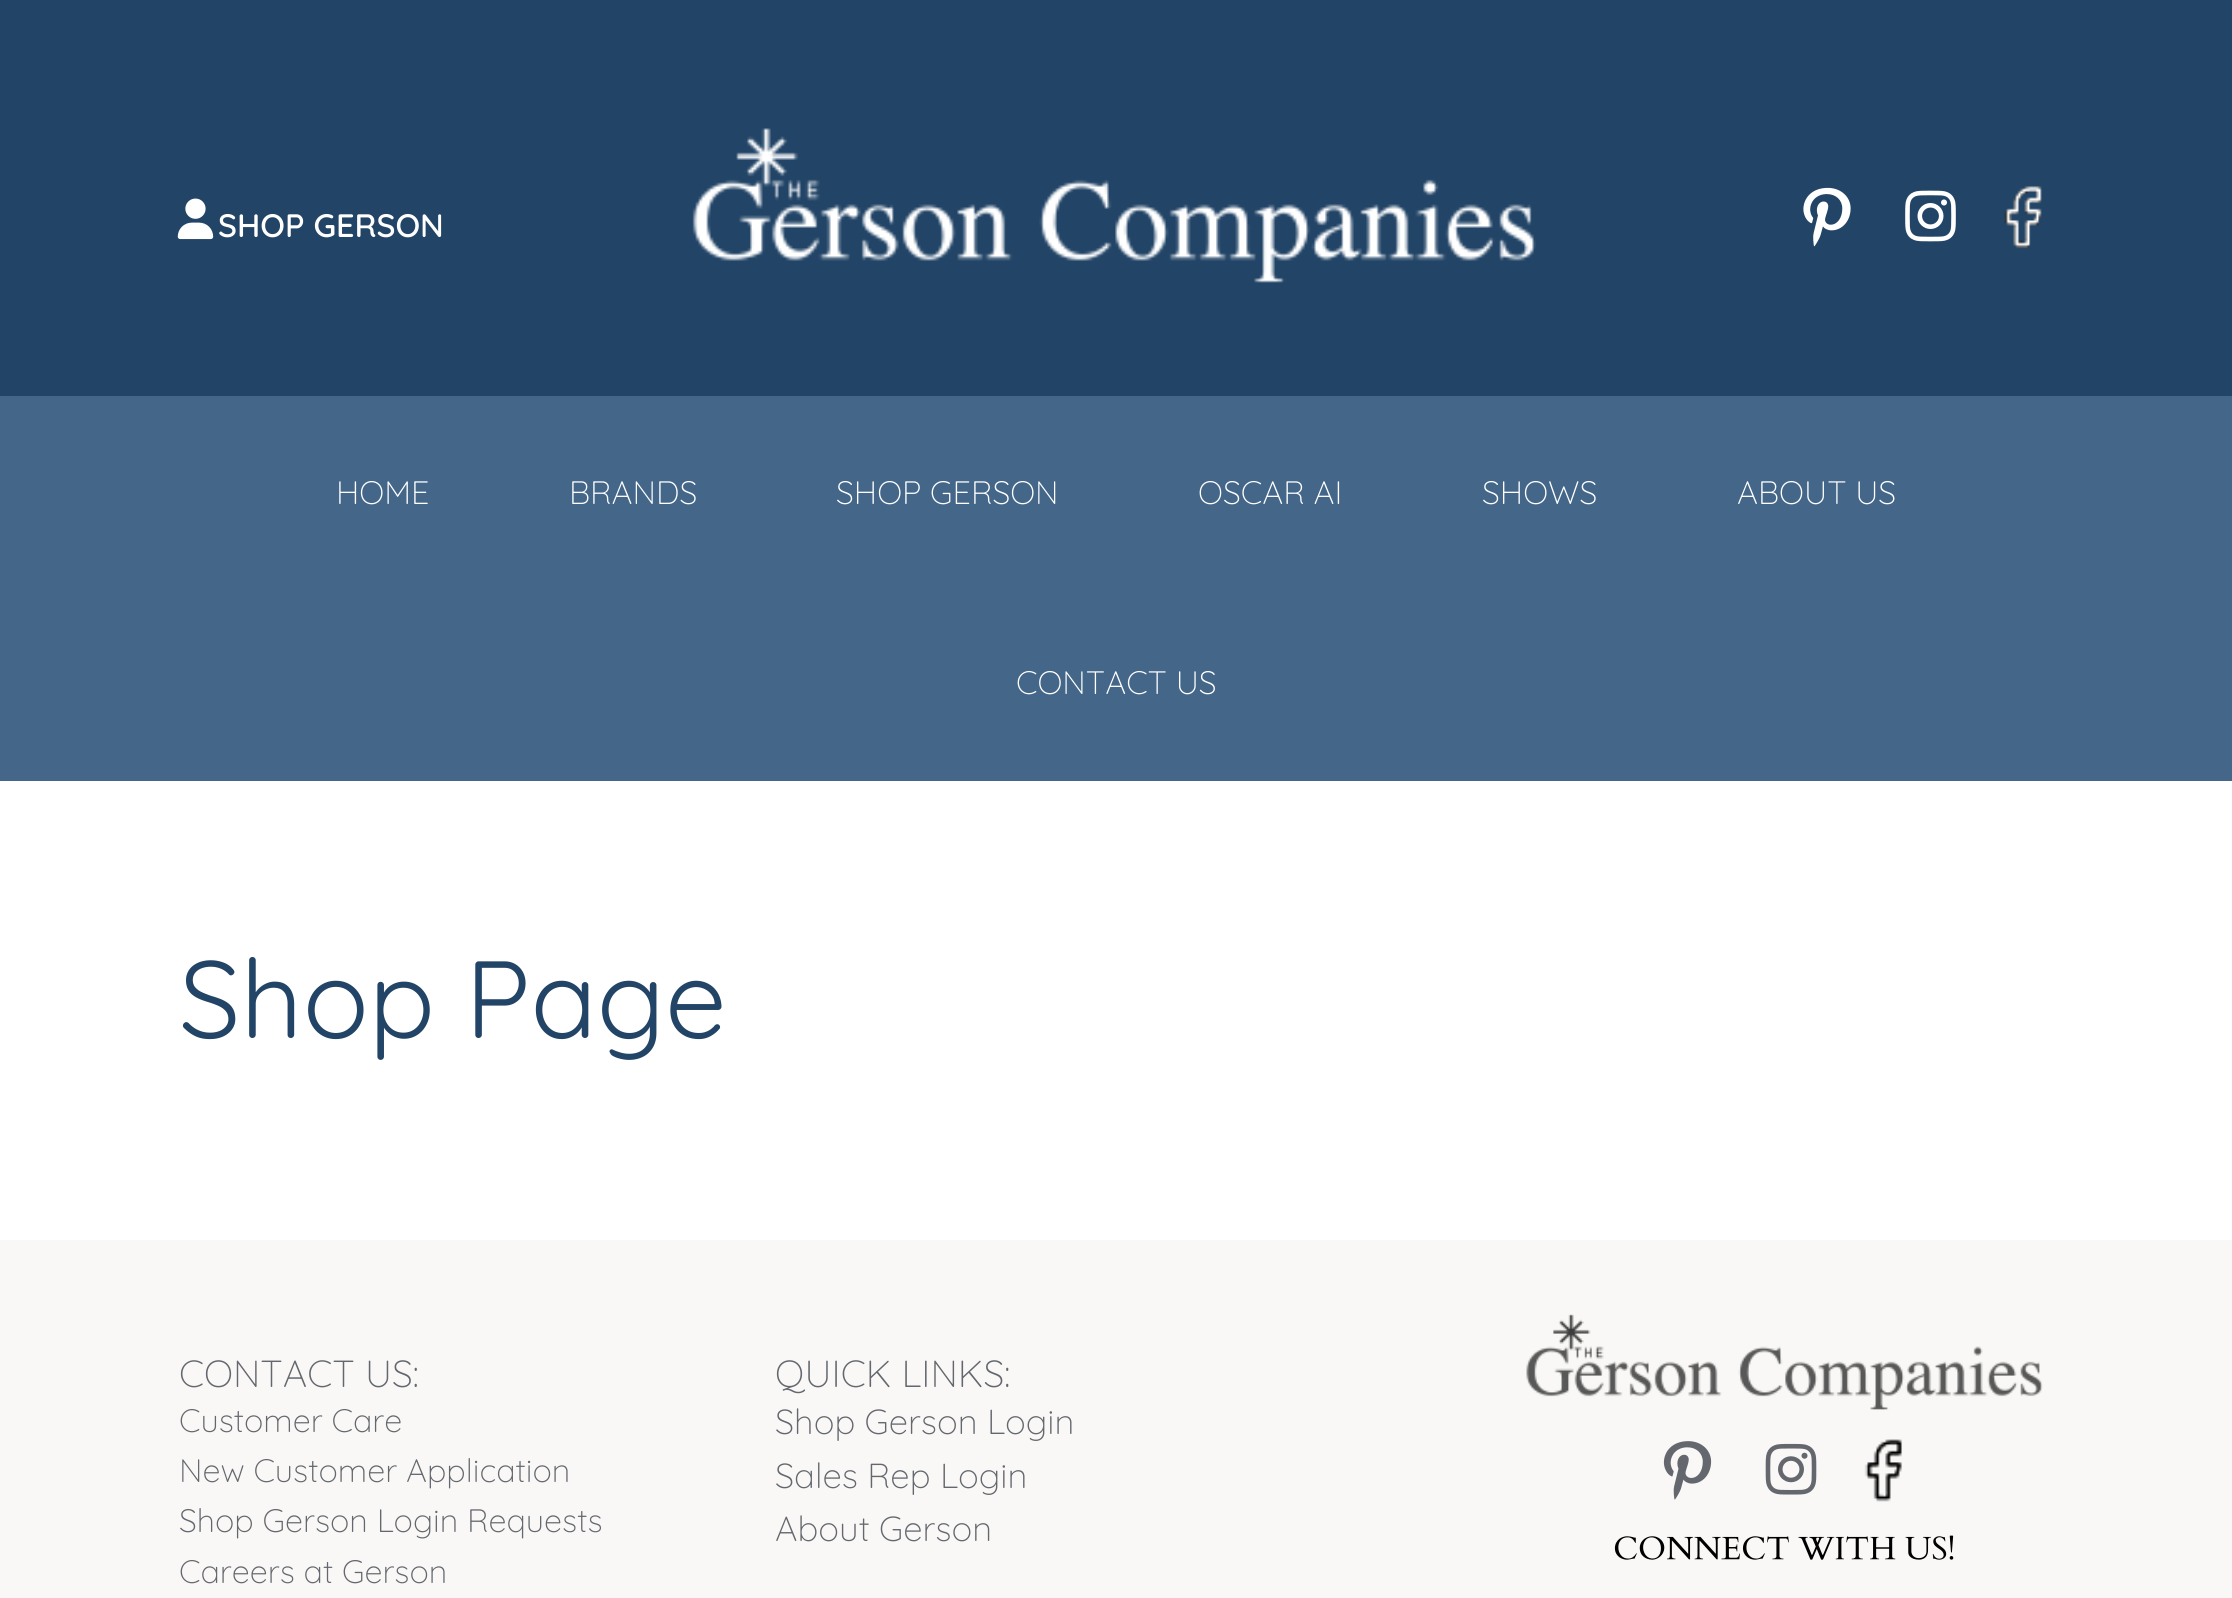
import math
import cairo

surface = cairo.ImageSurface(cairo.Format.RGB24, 2232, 1598)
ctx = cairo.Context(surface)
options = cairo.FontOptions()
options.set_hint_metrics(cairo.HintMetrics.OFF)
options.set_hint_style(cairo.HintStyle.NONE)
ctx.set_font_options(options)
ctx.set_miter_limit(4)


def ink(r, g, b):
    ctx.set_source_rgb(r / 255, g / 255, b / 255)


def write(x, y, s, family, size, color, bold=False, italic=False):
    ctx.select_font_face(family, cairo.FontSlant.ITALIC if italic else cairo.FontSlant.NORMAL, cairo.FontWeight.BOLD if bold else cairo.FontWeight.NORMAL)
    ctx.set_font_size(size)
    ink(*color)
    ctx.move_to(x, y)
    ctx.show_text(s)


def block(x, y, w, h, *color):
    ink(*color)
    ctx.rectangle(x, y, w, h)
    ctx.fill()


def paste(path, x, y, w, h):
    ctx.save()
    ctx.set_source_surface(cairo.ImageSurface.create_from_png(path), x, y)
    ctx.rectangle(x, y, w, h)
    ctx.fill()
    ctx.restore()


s1 = dict(family="Quicksand SemiBold", size=32.4, color=(255, 255, 255))
s2 = dict(family="Quicksand Light", size=32.4, color=(255, 255, 255))
s3 = dict(family="Quicksand", size=109.5, color=(34, 68, 102))
s4 = dict(family="Quicksand Light", size=37.75, color=(100, 104, 110))
s5 = dict(family="Quicksand Light", size=32.4, color=(100, 104, 110))
s6 = dict(family="Quicksand Light", size=34.75, color=(100, 104, 110))

ink(255, 255, 255)
ctx.paint()
block(0, 0, 2232, 396, 34, 68, 102)
paste("pic1.png", 177, 198, 37, 42)
write(218, 237, "SHOP GERSON", **s1)
paste("pic2.png", 692, 128, 844, 155)
paste("pic3.png", 1803, 187, 48, 60)
paste("pic4.png", 1905, 190, 51, 52)
paste("pic5.png", 2004, 186, 38, 63)
block(0, 396, 2232, 385, 68, 102, 136)
write(336, 504, "HOME", **s2)
write(569, 504, "BRANDS", **s2)
write(836, 504, "SHOP GERSON", **s2)
write(1198, 504, "OSCAR AI", **s2)
write(1482, 504, "SHOWS", **s2)
write(1737, 504, "ABOUT US", **s2)
write(1016, 694, "CONTACT US", **s2)
write(179, 1038, "Shop Page", **s3)
block(0, 1240, 2232, 358, 249, 248, 246)
write(179, 1387, "CONTACT US:", **s4)
write(179, 1432, "Customer Care", **s5)
write(179, 1482, "New Customer Application", **s5)
write(179, 1532, "Shop Gerson Login Requests", **s5)
write(179, 1583, "Careers at Gerson", **s5)
write(775, 1387, "QUICK LINKS:", **s4)
write(775, 1434, "Shop Gerson Login", **s6)
write(775, 1488, "Sales Rep Login", **s6)
write(775, 1541, "About Gerson", **s6)
paste("pic6.png", 1526, 1314, 517, 96)
paste("pic7.png", 1663, 1441, 49, 59)
paste("pic8.png", 1765, 1443, 52, 52)
paste("pic9.png", 1864, 1439, 38, 63)
paste("pic10.png", 1614, 1535, 340, 25)
surface.write_to_png("screenshot.png")
